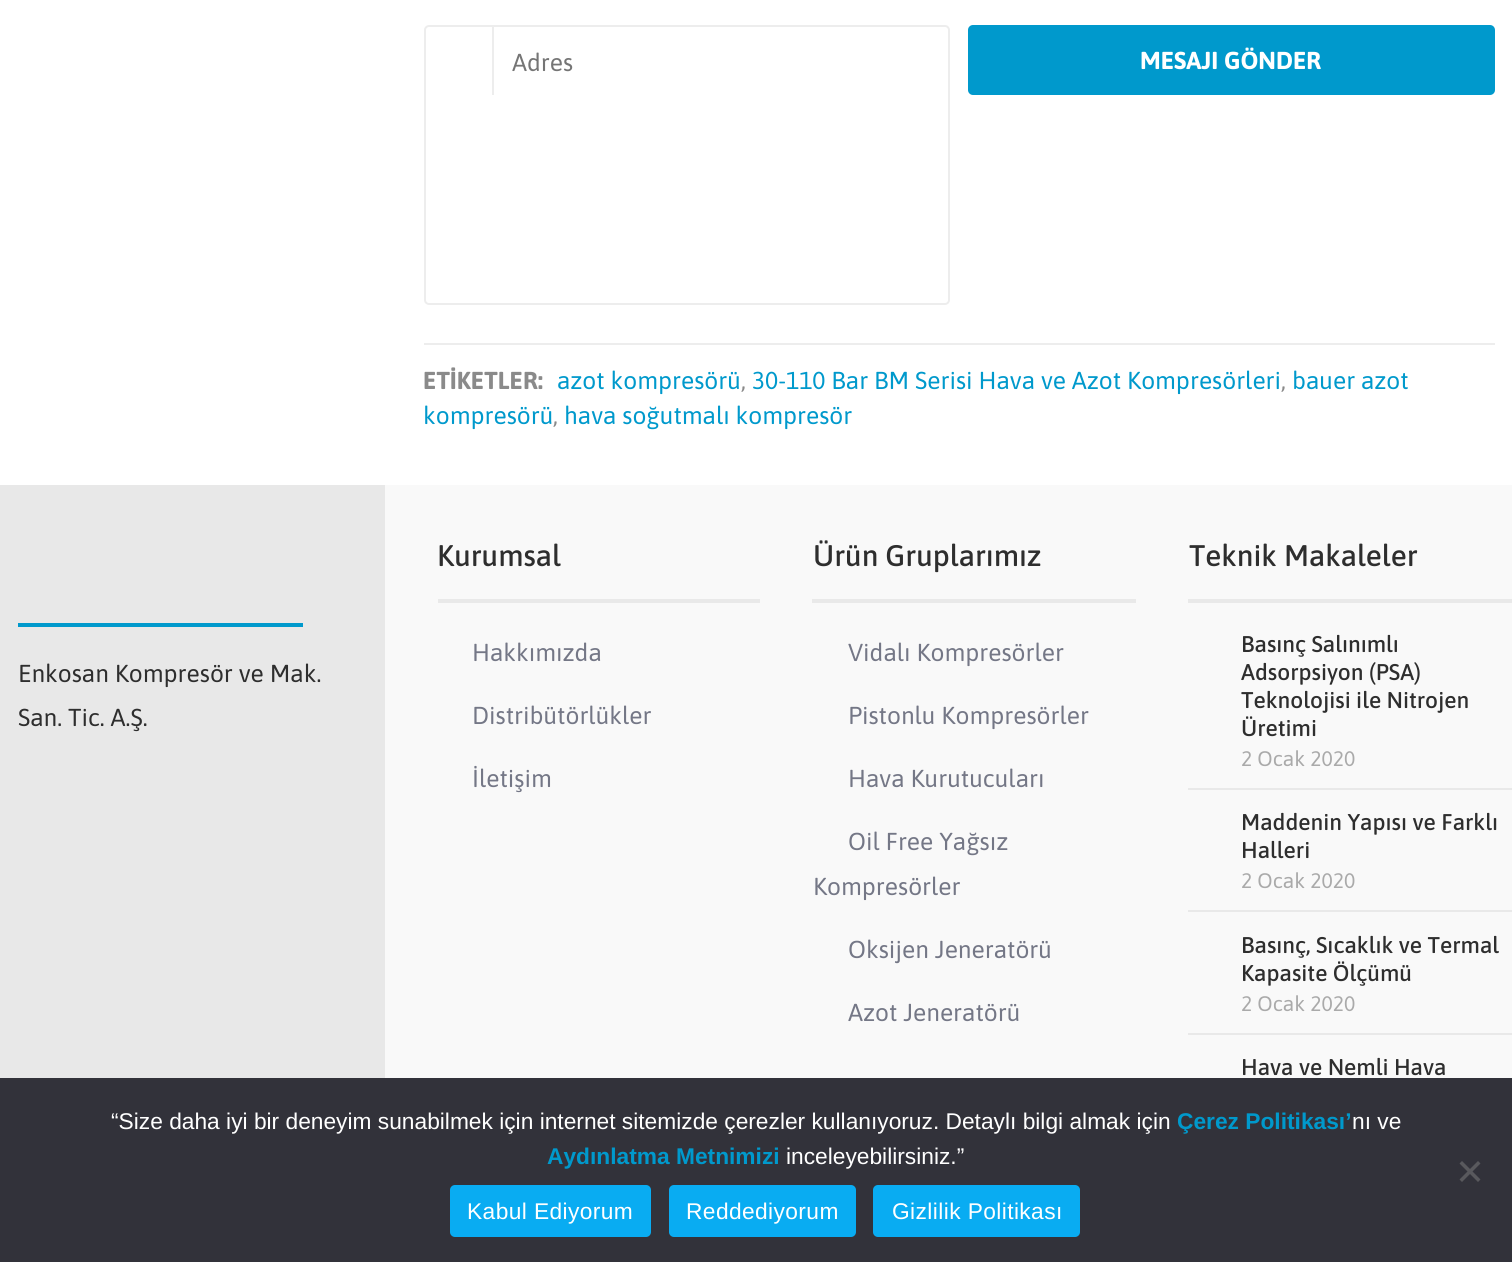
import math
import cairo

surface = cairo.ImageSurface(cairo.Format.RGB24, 1512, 1262)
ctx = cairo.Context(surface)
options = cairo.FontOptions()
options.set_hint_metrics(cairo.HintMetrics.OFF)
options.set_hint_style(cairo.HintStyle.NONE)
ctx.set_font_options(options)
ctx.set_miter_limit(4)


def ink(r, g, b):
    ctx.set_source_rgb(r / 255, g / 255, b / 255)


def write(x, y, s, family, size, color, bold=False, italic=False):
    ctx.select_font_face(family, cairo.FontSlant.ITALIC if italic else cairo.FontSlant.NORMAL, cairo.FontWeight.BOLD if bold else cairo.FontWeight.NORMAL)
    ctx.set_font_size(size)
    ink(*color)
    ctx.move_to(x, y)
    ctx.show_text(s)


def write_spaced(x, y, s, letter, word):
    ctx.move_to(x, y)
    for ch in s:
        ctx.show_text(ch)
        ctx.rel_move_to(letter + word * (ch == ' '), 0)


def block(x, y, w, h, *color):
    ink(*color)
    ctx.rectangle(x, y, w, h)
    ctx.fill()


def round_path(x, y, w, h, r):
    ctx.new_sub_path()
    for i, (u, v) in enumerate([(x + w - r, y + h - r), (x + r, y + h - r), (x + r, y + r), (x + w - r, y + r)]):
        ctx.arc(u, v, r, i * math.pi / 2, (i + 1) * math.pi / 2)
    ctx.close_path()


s1 = dict(family="Asap", size=24.5, color=(117, 117, 117))
s2 = dict(family="Asap", size=24.5, color=(255, 255, 255), bold=True)
s3 = dict(family="Asap", size=24.5, color=(138, 138, 138), bold=True)
s4 = dict(family="Asap", size=24.5, color=(0, 153, 204))
s5 = dict(family="Asap", size=24.5, color=(138, 138, 138))
s6 = dict(family="Asap", size=24.5, color=(46, 46, 46))
s7 = dict(family="Asap Medium", size=29.75, color=(46, 46, 46))
s8 = dict(family="Asap", size=24.5, color=(116, 119, 134))
s9 = dict(family="Asap Medium", size=22.75, color=(46, 46, 46))
s10 = dict(family="Asap", size=21, color=(170, 170, 170))
s11 = dict(family="Liberation Sans", size=22.75, color=(255, 255, 255))
s12 = dict(family="Liberation Sans", size=22.75, color=(0, 153, 204), bold=True)

ink(255, 255, 255)
ctx.paint()
round_path(425, 26, 524, 278, 4)
ink(237, 237, 237)
ctx.stroke()
block(492, 25, 2, 70, 237, 237, 237)
write(512, 71, "Adres", **s1)
ink(0, 153, 204)
round_path(968, 25, 527, 70, 5)
ctx.fill()
write(1140, 69, "MESAJI GÖNDER", **s2)
block(424, 343, 1071, 2, 237, 237, 237)
write(423, 389, "ETİKETLER:", **s3)
write(557, 389, "azot kompresörü", **s4)
write(741, 389, ",", **s5)
write(752, 389, "30-110 Bar BM Serisi Hava ve Azot Kompresörleri", **s4)
write(1281, 389, ",", **s5)
write(1292, 389, "bauer azot", **s4)
write(423, 424, "kompresörü", **s4)
write(553, 424, ",", **s5)
write(564, 424, "hava soğutmalı kompresör", **s4)
block(0, 485, 385, 593, 232, 232, 232)
block(385, 485, 1127, 593, 249, 249, 249)
block(18, 623, 285, 4, 0, 153, 204)
write(18, 682, "Enkosan Kompresör ve Mak.", **s6)
write(18, 726, "San. Tic. A.Ş.", **s6)
block(438, 599, 322, 4, 233, 233, 233)
write(437, 566, "Kurumsal", **s7)
write(472, 661, "Hakkımızda", **s8)
write(472, 724, "Distribütörlükler", **s8)
write(472, 787, "İletişim", **s8)
block(812, 599, 324, 4, 233, 233, 233)
write(813, 566, "Ürün Gruplarımız", **s7)
write(848, 661, "Vidalı Kompresörler", **s8)
write(848, 724, "Pistonlu Kompresörler", **s8)
write(848, 787, "Hava Kurutucuları", **s8)
write(848, 850, "Oil Free Yağsız", **s8)
write(813, 895, "Kompresörler", **s8)
write(848, 958, "Oksijen Jeneratörü", **s8)
write(848, 1021, "Azot Jeneratörü", **s8)
block(1188, 599, 324, 4, 233, 233, 233)
write(1189, 566, "Teknik Makaleler", **s7)
write(1241, 652, "Basınç Salınımlı", **s9)
write(1241, 680, "Adsorpsiyon (PSA)", **s9)
write(1241, 708, "Teknolojisi ile Nitrojen", **s9)
write(1241, 736, "Üretimi", **s9)
write(1241, 766, "2 Ocak 2020", **s10)
block(1188, 788, 324, 2, 233, 233, 233)
write(1241, 830, "Maddenin Yapısı ve Farklı", **s9)
write(1241, 858, "Halleri", **s9)
write(1241, 888, "2 Ocak 2020", **s10)
block(1188, 910, 324, 2, 233, 233, 233)
write(1241, 953, "Basınç, Sıcaklık ve Termal", **s9)
write(1241, 981, "Kapasite Ölçümü", **s9)
write(1241, 1011, "2 Ocak 2020", **s10)
block(1188, 1033, 324, 2, 233, 233, 233)
write(1241, 1075, "Hava ve Nemli Hava", **s9)
block(0, 1078, 1512, 184, 50, 50, 58)
write(111, 1129, "“Size daha iyi bir deneyim sunabilmek için internet sitemizde çerezler kullanıyoruz. Detaylı bilgi almak için", **s11)
write(1177, 1129, "Çerez Politikası’", **s12)
write(1352, 1129, "nı ve", **s11)
write(547, 1164, "Aydınlatma Metnimizi", **s12)
write(786, 1164, "inceleyebilirsiniz.”", **s11)
ink(89, 89, 93)
ctx.new_path()
ctx.move_to(1478, 1161)
ctx.line_to(1480.5, 1163.5)
ctx.line_to(1462, 1182)
ctx.line_to(1459.5, 1179.5)
ctx.close_path()
ctx.fill()
ctx.new_path()
ctx.move_to(1459.5, 1163.5)
ctx.line_to(1462, 1161)
ctx.line_to(1480.5, 1179.5)
ctx.line_to(1478, 1182)
ctx.close_path()
ctx.fill()
ink(9, 172, 242)
round_path(450, 1185, 201, 52, 5)
ctx.fill()
ink(255, 255, 255)
write_spaced(467, 1219, "Kabul Ediyorum", 0.4, 0)
ink(9, 172, 242)
round_path(669, 1185, 187, 52, 5)
ctx.fill()
ink(255, 255, 255)
write_spaced(686, 1219, "Reddediyorum", 0.4, 0)
ink(9, 172, 242)
round_path(873, 1185, 207, 52, 5)
ctx.fill()
ink(255, 255, 255)
write_spaced(892, 1219, "Gizlilik Politikası", 0.4, 0)
surface.write_to_png("screenshot.png")
